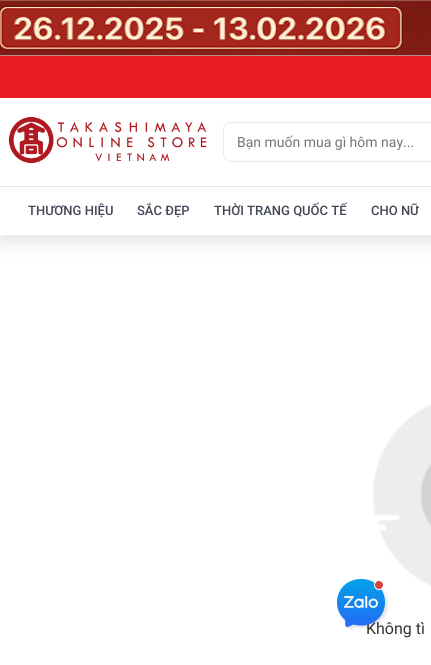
import math
import cairo

surface = cairo.ImageSurface(cairo.Format.RGB24, 431, 665)
ctx = cairo.Context(surface)
options = cairo.FontOptions()
options.set_hint_metrics(cairo.HintMetrics.OFF)
options.set_hint_style(cairo.HintStyle.NONE)
ctx.set_font_options(options)
ctx.set_miter_limit(4)


def ink(r, g, b):
    ctx.set_source_rgb(r / 255, g / 255, b / 255)


def write(x, y, s, family, size, color, bold=False, italic=False):
    ctx.select_font_face(family, cairo.FontSlant.ITALIC if italic else cairo.FontSlant.NORMAL, cairo.FontWeight.BOLD if bold else cairo.FontWeight.NORMAL)
    ctx.set_font_size(size)
    ink(*color)
    ctx.move_to(x, y)
    ctx.show_text(s)


def block(x, y, w, h, *color):
    ink(*color)
    ctx.rectangle(x, y, w, h)
    ctx.fill()


def round_path(x, y, w, h, r):
    ctx.new_sub_path()
    for i, (u, v) in enumerate([(x + w - r, y + h - r), (x + r, y + h - r), (x + r, y + r), (x + w - r, y + r)]):
        ctx.arc(u, v, r, i * math.pi / 2, (i + 1) * math.pi / 2)
    ctx.close_path()


def blur_box(x, y, w, h, r, blur, alpha):
    ctx.push_group_with_content(cairo.Content.ALPHA)
    ctx.set_operator(cairo.Operator.SOURCE)
    for i in range(15, -16, -2):
        e = blur * i / 6
        if min(w, h) + 2 * e > 0:
            ctx.set_source_rgba(0, 0, 0, alpha * math.erfc((i - 1) / 8.5) / 2)
            round_path(x - e, y - e, w + 2 * e, h + 2 * e, max(0, min(r + e + blur * .6, min(w, h) / 2 + e)))
            ctx.fill()
    ctx.mask(ctx.pop_group())


def paste(path, x, y, w, h):
    ctx.save()
    ctx.set_source_surface(cairo.ImageSurface.create_from_png(path), x, y)
    ctx.rectangle(x, y, w, h)
    ctx.fill()
    ctx.restore()


s1 = dict(family="Roboto", size=14, color=(117, 117, 117))
s2 = dict(family="Roboto Medium", size=13, color=(67, 70, 87))
s3 = dict(family="Roboto", size=16, color=(51, 51, 51))

ink(248, 248, 252)
ctx.paint()
paste("pic1.png", 0, 0, 431, 56)
block(0, 56, 431, 42, 236, 28, 36)
block(0, 235, 431, 430, 255, 255, 255)
ink(0, 0, 0)
blur_box(0, 106, 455, 137, 0, 8, 0.1)
block(0, 98, 431, 137, 255, 255, 255)
paste("pic2.png", 8, 116, 199, 48)
round_path(223.5, 122.5, 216, 39, 7.5)
ink(234, 234, 234)
ctx.set_line_width(1)
ctx.stroke()
write(237, 147, "Bạn muốn mua gì hôm nay...", **s1)
block(0, 186, 431, 1, 228, 229, 240)
write(28, 215, "THƯƠNG HIỆU", **s2)
write(137, 215, "SẮC ĐẸP", **s2)
write(214, 215, "THỜI TRANG QUỐC TẾ", **s2)
ctx.save()
ctx.rectangle(371, 201, 48, 20)
ctx.clip()
write(371, 215, "CHO NỮ", **s2)
ctx.restore()
paste("pic4.png", 373, 404, 58, 182)
write(366, 634, "Không tì", **s3)
paste("pic3.png", 337, 579, 52, 51)
surface.write_to_png("screenshot.png")
